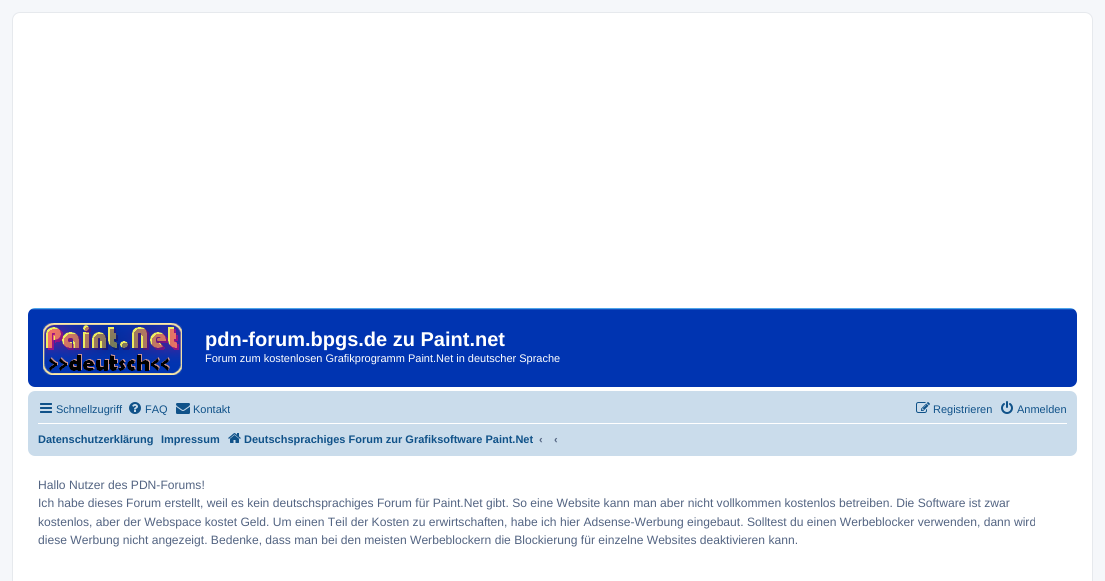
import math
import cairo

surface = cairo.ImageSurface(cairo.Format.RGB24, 1105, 581)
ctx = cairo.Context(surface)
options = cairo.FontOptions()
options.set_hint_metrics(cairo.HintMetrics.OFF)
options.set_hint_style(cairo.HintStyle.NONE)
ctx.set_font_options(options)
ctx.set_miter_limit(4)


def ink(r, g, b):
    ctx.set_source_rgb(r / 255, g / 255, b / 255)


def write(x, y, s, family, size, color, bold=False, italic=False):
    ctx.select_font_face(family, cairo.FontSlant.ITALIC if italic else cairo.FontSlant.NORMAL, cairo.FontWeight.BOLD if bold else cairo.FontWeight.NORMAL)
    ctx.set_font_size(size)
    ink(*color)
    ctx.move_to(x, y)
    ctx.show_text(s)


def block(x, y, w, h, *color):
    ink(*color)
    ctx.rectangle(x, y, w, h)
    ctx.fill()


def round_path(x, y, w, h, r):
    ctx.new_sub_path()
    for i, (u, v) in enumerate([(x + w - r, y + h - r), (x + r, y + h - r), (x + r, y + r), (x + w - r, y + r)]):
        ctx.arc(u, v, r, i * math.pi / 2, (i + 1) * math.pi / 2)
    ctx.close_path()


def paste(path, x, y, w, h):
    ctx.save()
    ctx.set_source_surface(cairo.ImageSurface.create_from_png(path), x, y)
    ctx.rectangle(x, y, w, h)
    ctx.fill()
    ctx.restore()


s1 = dict(family="Liberation Sans", size=20, color=(255, 255, 255), bold=True)
s2 = dict(family="Liberation Sans", size=11, color=(255, 255, 255))
s3 = dict(family="Liberation Sans", size=11, color=(16, 82, 137))
s4 = dict(family="Liberation Sans", size=11, color=(16, 82, 137), bold=True)
s5 = dict(family="Liberation Sans", size=11, color=(83, 100, 130), bold=True)
s6 = dict(family="Liberation Sans", size=12.1, color=(83, 100, 130))

ink(245, 247, 250)
ctx.paint()
ink(255, 255, 255)
round_path(12.5, 12.5, 1080, 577, 7.5)
ctx.fill_preserve()
ink(230, 233, 237)
ctx.set_line_width(1)
ctx.stroke()
gradient = cairo.LinearGradient(553, 308, 553, 400)
gradient.add_color_stop_rgba(0, 0.416, 0.808, 1, 1)
gradient.add_color_stop_rgba(0.02, 0, 0.204, 0.694, 1)
ctx.set_source(gradient)
round_path(28, 308, 1049, 79, 7)
ctx.fill()
paste("pic1.png", 43, 323, 139, 52)
write(205, 346, "pdn-forum.bpgs.de zu Paint.net", **s1)
write(205, 362, "Forum zum kostenlosen Grafikprogramm Paint.Net in deutscher Sprache", **s2)
ink(202, 220, 235)
round_path(28, 391, 1049, 65, 7)
ctx.fill()
paste("pic2.png", 40, 403, 12, 10)
write(56, 413, "Schnellzugriff", **s3)
paste("pic3.png", 129, 402, 12, 12)
write(145, 413, "FAQ", **s3)
paste("pic4.png", 176, 403, 14, 11)
write(193, 413, "Kontakt", **s3)
paste("pic5.png", 916, 402, 14, 11)
write(933, 413, "Registrieren", **s3)
paste("pic6.png", 1001, 401, 12, 13)
write(1017, 413, "Anmelden", **s3)
block(38, 423, 1029, 1, 255, 255, 255)
write(38, 443, "Datenschutzerklärung", **s4)
write(161, 443, "Impressum", **s4)
paste("pic7.png", 228, 433, 13, 10)
write(244, 443, "Deutschsprachiges Forum zur Grafiksoftware Paint.Net", **s4)
write(539, 443, "‹", **s5)
write(554, 443, "‹", **s5)
write(38, 489, "Hallo Nutzer des PDN-Forums!", **s6)
write(38, 507, "Ich habe dieses Forum erstellt, weil es kein deutschsprachiges Forum für Paint.Net gibt. So eine Website kann man aber nicht vollkommen kostenlos betreiben. Die Software ist zwar", **s6)
write(38, 526, "kostenlos, aber der Webspace kostet Geld. Um einen Teil der Kosten zu erwirtschaften, habe ich hier Adsense-Werbung eingebaut. Solltest du einen Werbeblocker verwenden, dann wird", **s6)
write(38, 544, "diese Werbung nicht angezeigt. Bedenke, dass man bei den meisten Werbeblockern die Blockierung für einzelne Websites deaktivieren kann.", **s6)
surface.write_to_png("screenshot.png")
